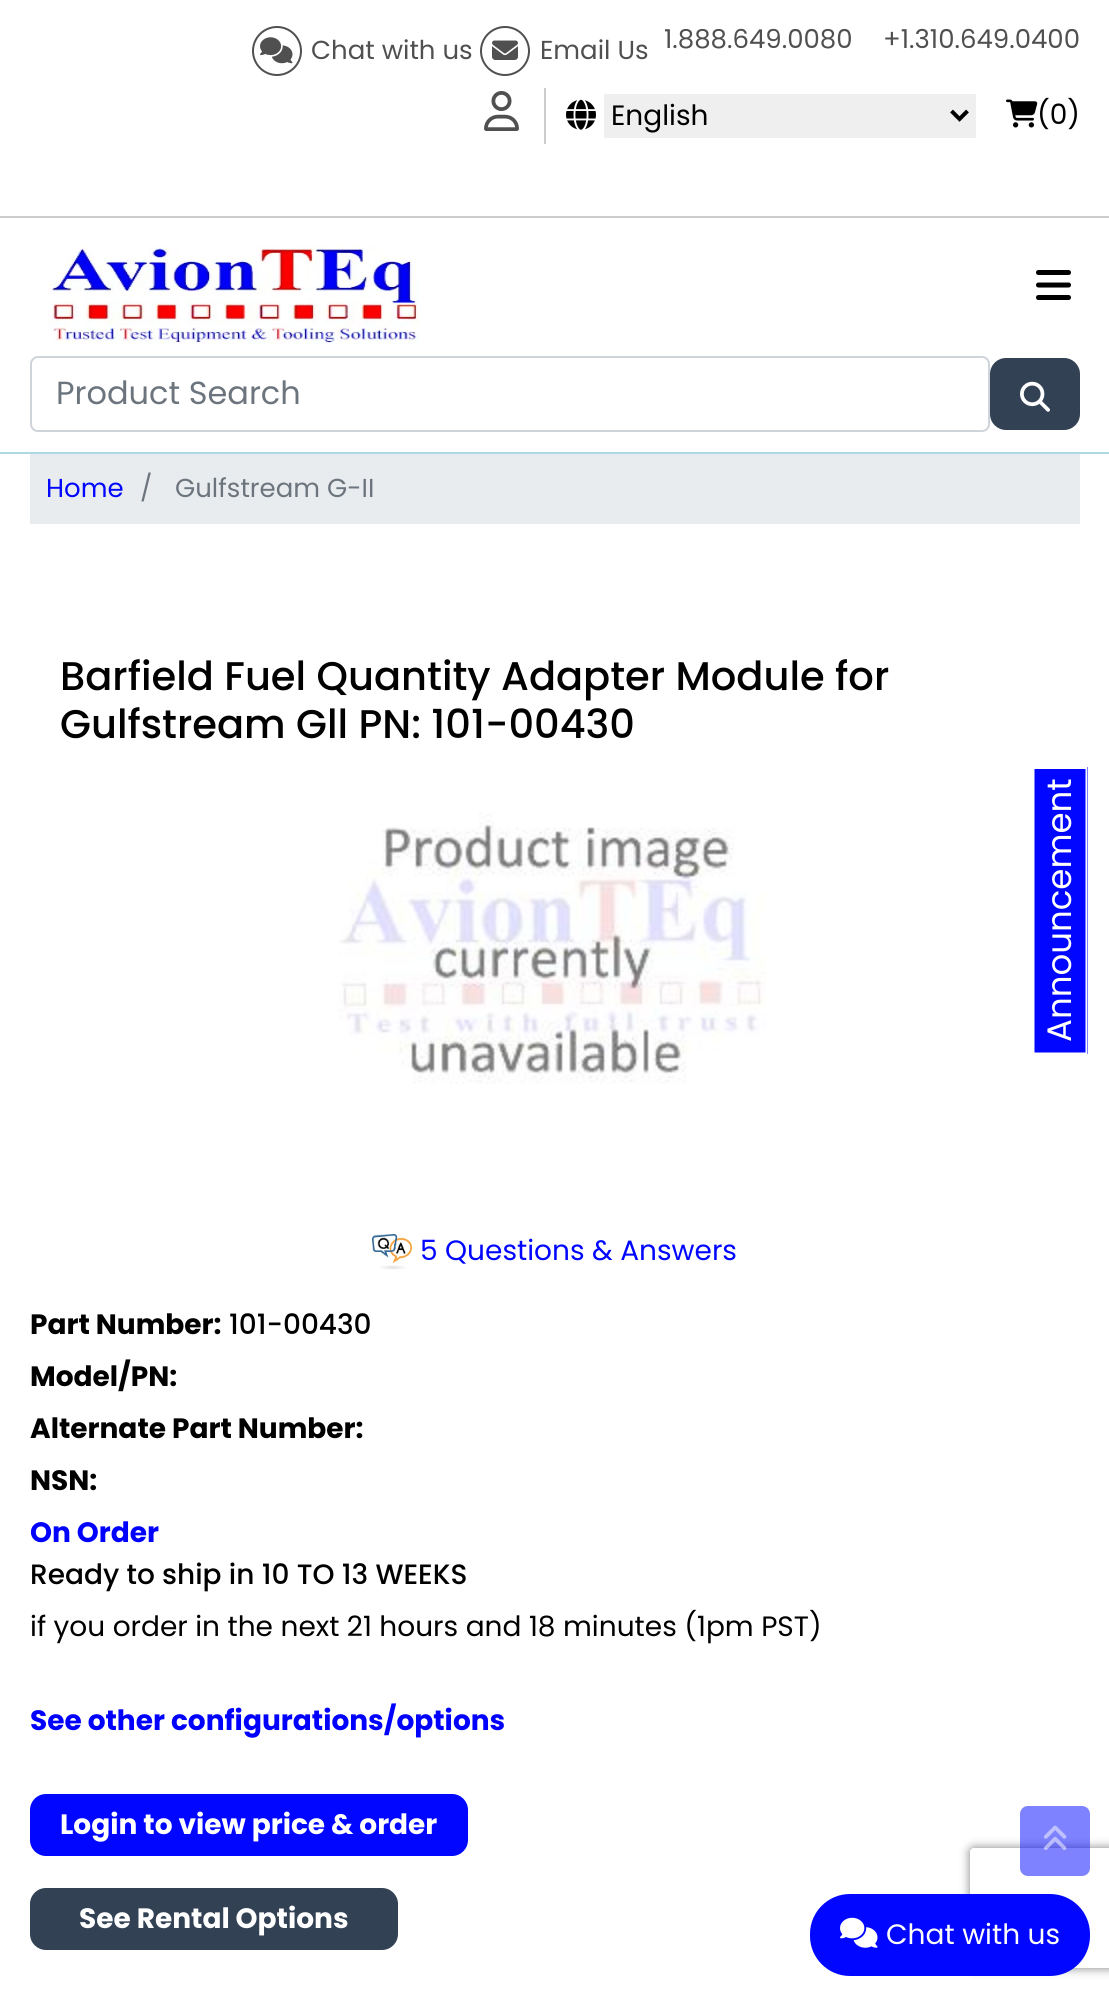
import math
import cairo

surface = cairo.ImageSurface(cairo.Format.RGB24, 1109, 1996)
ctx = cairo.Context(surface)
options = cairo.FontOptions()
options.set_hint_metrics(cairo.HintMetrics.OFF)
options.set_hint_style(cairo.HintStyle.NONE)
ctx.set_font_options(options)
ctx.set_miter_limit(4)


def ink(r, g, b):
    ctx.set_source_rgb(r / 255, g / 255, b / 255)


def write(x, y, s, family, size, color, bold=False, italic=False):
    ctx.select_font_face(family, cairo.FontSlant.ITALIC if italic else cairo.FontSlant.NORMAL, cairo.FontWeight.BOLD if bold else cairo.FontWeight.NORMAL)
    ctx.set_font_size(size)
    ink(*color)
    ctx.move_to(x, y)
    ctx.show_text(s)


def block(x, y, w, h, *color):
    ink(*color)
    ctx.rectangle(x, y, w, h)
    ctx.fill()


def round_path(x, y, w, h, r):
    ctx.new_sub_path()
    for i, (u, v) in enumerate([(x + w - r, y + h - r), (x + r, y + h - r), (x + r, y + r), (x + w - r, y + r)]):
        ctx.arc(u, v, r, i * math.pi / 2, (i + 1) * math.pi / 2)
    ctx.close_path()


def blur_box(x, y, w, h, r, blur, alpha):
    ctx.push_group_with_content(cairo.Content.ALPHA)
    ctx.set_operator(cairo.Operator.SOURCE)
    for i in range(15, -16, -2):
        e = blur * i / 6
        if min(w, h) + 2 * e > 0:
            ctx.set_source_rgba(0, 0, 0, alpha * math.erfc((i - 1) / 8.5) / 2)
            round_path(x - e, y - e, w + 2 * e, h + 2 * e, max(0, min(r + e + blur * .6, min(w, h) / 2 + e)))
            ctx.fill()
    ctx.mask(ctx.pop_group())


def paste(path, x, y, w, h):
    ctx.save()
    ctx.set_source_surface(cairo.ImageSurface.create_from_png(path), x, y)
    ctx.rectangle(x, y, w, h)
    ctx.fill()
    ctx.restore()


s1 = dict(family="Poppins", size=26, color=(80, 80, 80))
s2 = dict(family="Poppins", size=28, color=(0, 0, 0))
s3 = dict(family="Poppins", size=32, color=(108, 117, 125))
s4 = dict(family="Poppins", size=26, color=(0, 6, 255))
s5 = dict(family="Poppins", size=26, color=(108, 117, 125))
s6 = dict(family="Poppins Medium", size=40, color=(0, 0, 0))
s7 = dict(family="Poppins", size=28, color=(0, 6, 255))
s8 = dict(family="Poppins", size=28, color=(0, 0, 0), bold=True)
s9 = dict(family="Poppins Medium", size=28, color=(0, 0, 0))
s10 = dict(family="Poppins", size=28, color=(0, 0, 255), bold=True)
s11 = dict(family="Poppins", size=28, color=(255, 255, 255), bold=True)
s12 = dict(family="Poppins", size=34, color=(255, 255, 255))
s13 = dict(family="Poppins", size=28, color=(255, 255, 255))

ink(255, 255, 255)
ctx.paint()
block(0, 216, 1109, 2, 204, 204, 204)
ctx.arc(277, 51, 24, 0, 2 * math.pi)
ink(80, 80, 80)
ctx.stroke()
paste("pic1.png", 260, 37, 33, 27)
write(311, 59, "Chat with us", **s1)
ctx.new_path()
ctx.arc(505, 51, 24, 0, 2 * math.pi)
ctx.stroke()
paste("pic2.png", 492, 40, 26, 20)
write(540, 59, "Email Us", **s1)
write(664, 48, "1.888.649.0080", **s1)
write(883, 48, "+1.310.649.0400", **s1)
paste("pic3.png", 484, 91, 35, 40)
block(544, 88, 2, 56, 204, 204, 204)
paste("pic4.png", 566, 99, 30, 31)
block(604, 94, 372, 44, 239, 239, 239)
ctx.new_path()
ctx.move_to(951.5, 111)
ctx.line_to(959.5, 119)
ctx.line_to(967.5, 111)
ink(0, 0, 0)
ctx.set_line_width(4)
ctx.stroke()
write(611, 125, "English", **s2)
paste("pic5.png", 1006, 99, 32, 29)
write(1037, 124, "(0)", **s2)
block(0, 452, 1109, 2, 173, 216, 230)
paste("pic6.png", 48, 245, 371, 100)
paste("pic7.png", 1036, 270, 35, 30)
round_path(31, 357, 958, 74, 7)
ink(206, 212, 218)
ctx.set_line_width(2)
ctx.stroke()
write(56, 404, "Product Search", **s3)
ink(51, 65, 85)
round_path(990, 358, 90, 72, 16)
ctx.fill()
paste("pic8.png", 1020, 381, 30, 31)
block(30, 454, 1050, 70, 233, 236, 239)
write(46, 497, "Home", **s4)
write(140, 497, "/", **s5)
write(175, 497, "Gulfstream G-II", **s5)
write(60, 690, "Barfield Fuel Quantity Adapter Module for", **s6)
write(60, 738, "Gulfstream Gll PN: 101-00430", **s6)
paste("pic9.png", 339, 812, 427, 272)
paste("pic10.png", 372, 1234, 40, 36)
write(420, 1260, "5 Questions & Answers", **s7)
write(30, 1334, "Part Number:", **s8)
write(229, 1334, "101-00430", **s9)
write(30, 1386, "Model/PN:", **s8)
write(30, 1438, "Alternate Part Number:", **s8)
write(30, 1490, "NSN:", **s8)
write(30, 1542, "On Order", **s10)
write(30, 1584, "Ready to ship in 10 TO 13 WEEKS", **s9)
write(30, 1636, "if you order in the next 21 hours and 18 minutes (1pm PST)", **s2)
write(30, 1730, "See other configurations/options", **s10)
ink(0, 6, 255)
round_path(30, 1794, 438, 62, 16)
ctx.fill()
write(60, 1834, "Login to view price & order", **s11)
ink(51, 65, 85)
round_path(30, 1888, 368, 62, 16)
ctx.fill()
write(79, 1928, "See Rental Options", **s11)
ctx.save()
ctx.set_fill_rule(cairo.FillRule.EVEN_ODD)
ctx.new_path()
ctx.move_to(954, 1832)
ctx.line_to(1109, 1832)
ctx.line_to(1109, 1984)
ctx.line_to(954, 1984)
ctx.close_path()
ctx.move_to(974, 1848)
ctx.line_to(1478, 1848)
ctx.curve_to(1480, 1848, 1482, 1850, 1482, 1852)
ctx.line_to(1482, 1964)
ctx.curve_to(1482, 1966, 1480, 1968, 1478, 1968)
ctx.line_to(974, 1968)
ctx.curve_to(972, 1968, 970, 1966, 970, 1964)
ctx.line_to(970, 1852)
ctx.curve_to(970, 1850, 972, 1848, 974, 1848)
ctx.close_path()
ctx.clip()
ink(128, 128, 128)
blur_box(970, 1848, 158, 120, 4, 5, 1)
ctx.restore()
ctx.set_source_rgba(0, 0.024, 1, 0.5)
round_path(1020, 1806, 70, 70, 8)
ctx.fill()
paste("pic11.png", 1043, 1825, 24, 25)
block(1034, 767, 54, 287, 0, 6, 255)
ctx.new_path()
ctx.move_to(1033.5, 1053.5)
ctx.line_to(1033.5, 768)
ctx.line_to(1086.5, 768)
ctx.line_to(1086.5, 1053.5)
ctx.close_path()
ink(255, 255, 255)
ctx.stroke()
ctx.save()
ctx.translate(1071, 1042)
ctx.rotate(-90 * math.pi / 180)
write(0, 0, "Announcement", **s12)
ctx.restore()
ink(0, 6, 255)
round_path(810, 1894, 280, 82, 40)
ctx.fill()
paste("pic12.png", 840, 1917, 38, 31)
write(886, 1944, "Chat with us", **s13)
surface.write_to_png("screenshot.png")
